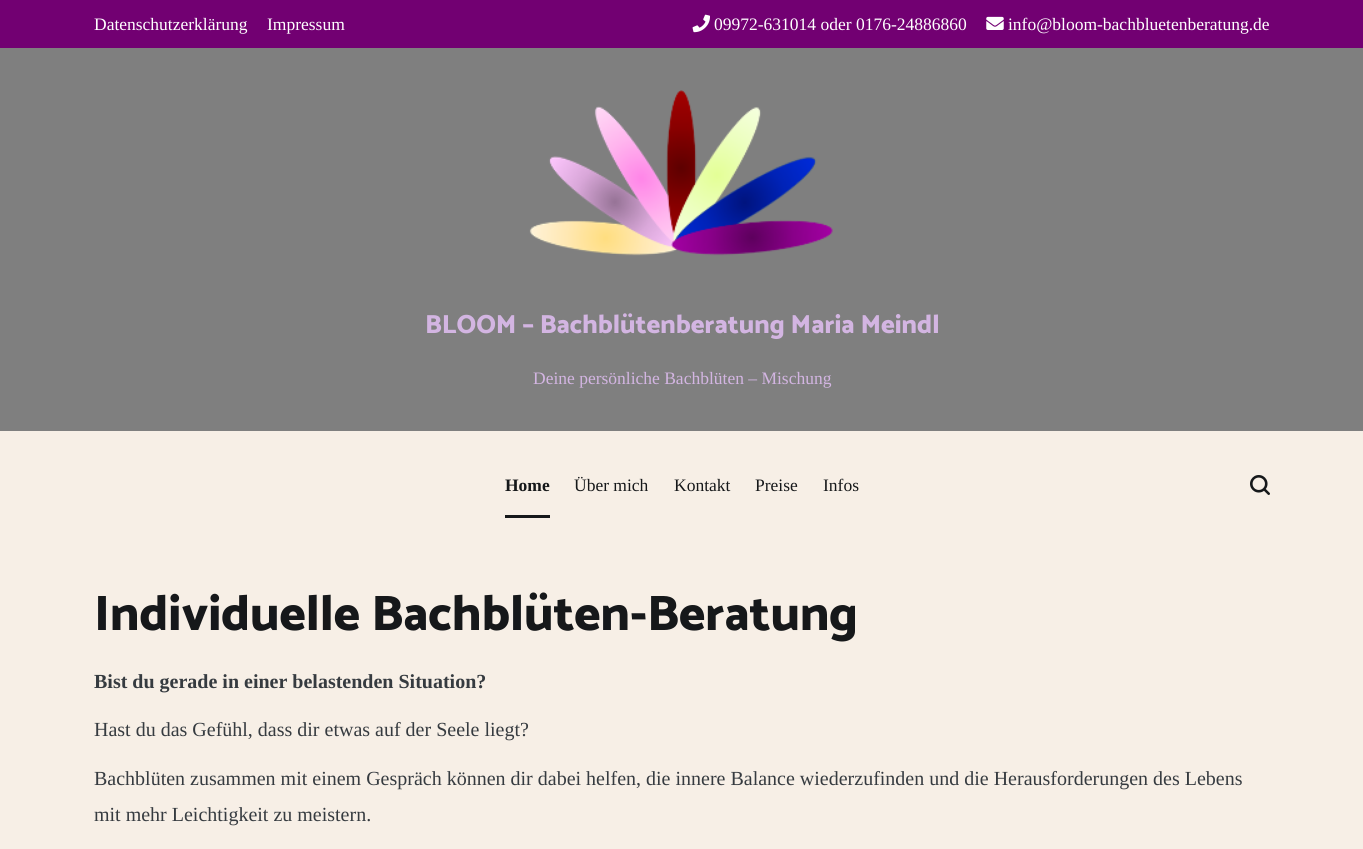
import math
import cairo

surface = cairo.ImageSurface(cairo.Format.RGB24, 1363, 849)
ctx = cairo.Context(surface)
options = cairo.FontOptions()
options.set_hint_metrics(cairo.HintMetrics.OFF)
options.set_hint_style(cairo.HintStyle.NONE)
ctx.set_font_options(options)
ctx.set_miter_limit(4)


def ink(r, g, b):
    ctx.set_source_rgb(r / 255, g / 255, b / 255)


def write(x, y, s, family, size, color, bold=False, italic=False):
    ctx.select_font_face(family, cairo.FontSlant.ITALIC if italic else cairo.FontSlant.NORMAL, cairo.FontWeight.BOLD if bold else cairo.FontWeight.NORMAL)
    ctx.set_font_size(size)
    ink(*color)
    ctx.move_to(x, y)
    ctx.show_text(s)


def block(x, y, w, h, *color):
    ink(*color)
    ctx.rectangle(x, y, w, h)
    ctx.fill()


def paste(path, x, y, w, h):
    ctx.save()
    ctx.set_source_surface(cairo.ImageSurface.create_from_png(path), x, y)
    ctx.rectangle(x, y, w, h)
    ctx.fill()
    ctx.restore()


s1 = dict(family="Liberation Serif", size=17.5, color=(255, 255, 255))
s2 = dict(family="Catamaran ExtraBold", size=26.25, color=(211, 181, 226))
s3 = dict(family="Liberation Serif", size=17.5, color=(211, 181, 226))
s4 = dict(family="Liberation Serif", size=17.5, color=(22, 24, 26), bold=True)
s5 = dict(family="Liberation Serif", size=17.5, color=(22, 24, 26))
s6 = dict(family="Catamaran ExtraBold", size=50, color=(22, 24, 26))
s7 = dict(family="Liberation Serif", size=20, color=(54, 59, 64), bold=True)
s8 = dict(family="Liberation Serif", size=20, color=(54, 59, 64))

ink(247, 239, 230)
ctx.paint()
block(0, 0, 1363, 48, 114, 0, 114)
write(94, 30, "Datenschutzerklärung", **s1)
write(267, 30, "Impressum", **s1)
paste("pic1.png", 692, 14, 18, 19)
write(714, 30, "09972-631014 oder 0176-24886860", **s1)
paste("pic2.png", 986, 16, 18, 14)
write(1008, 30, "info@bloom-bachbluetenberatung.de", **s1)
block(0, 48, 1363, 383, 127, 127, 127)
paste("pic3.png", 529, 90, 304, 166)
write(425, 333, "BLOOM – Bachblütenberatung Maria Meindl", **s2)
write(533, 384, "Deine persönliche Bachblüten – Mischung", **s3)
block(505, 515, 45, 3, 22, 24, 26)
write(505, 491, "Home", **s4)
write(574, 491, "Über mich", **s5)
write(674, 491, "Kontakt", **s5)
write(755, 491, "Preise", **s5)
write(823, 491, "Infos", **s5)
paste("pic4.png", 1250, 475, 20, 20)
write(94, 630, "Individuelle Bachblüten-Beratung", **s6)
write(94, 688, "Bist du gerade in einer belastenden Situation?", **s7)
write(94, 736, "Hast du das Gefühl, dass dir etwas auf der Seele liegt?", **s8)
write(94, 785, "Bachblüten zusammen mit einem Gespräch können dir dabei helfen, die innere Balance wiederzufinden und die Herausforderungen des Lebens", **s8)
write(94, 821, "mit mehr Leichtigkeit zu meistern.", **s8)
surface.write_to_png("screenshot.png")
